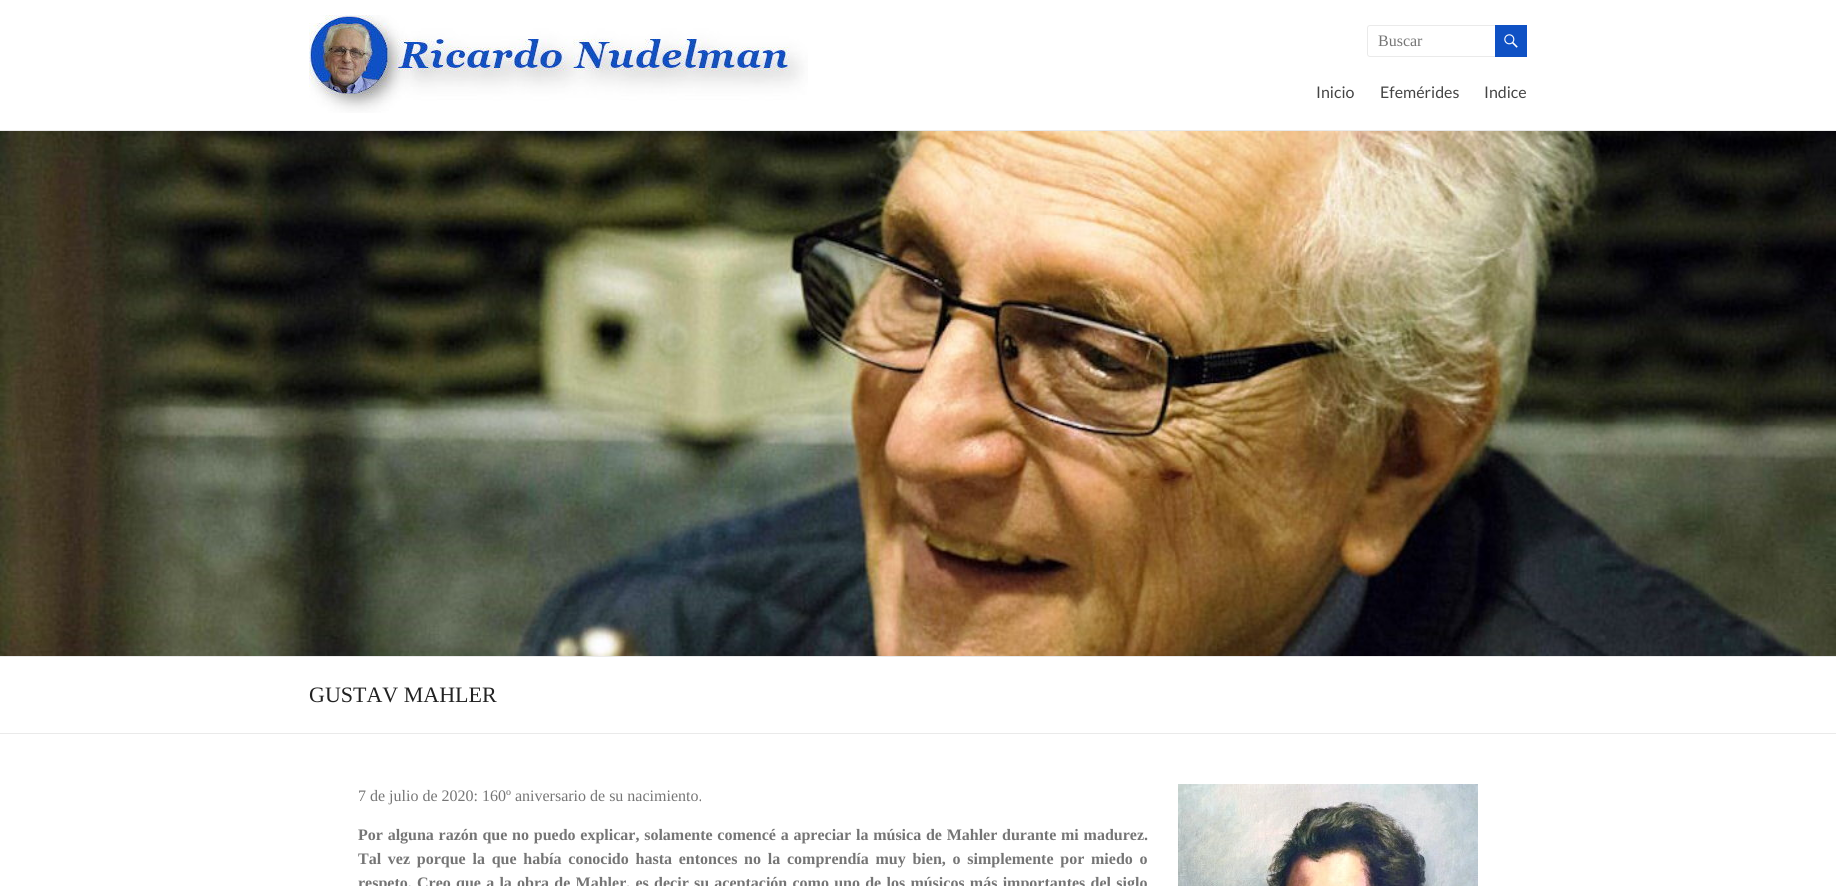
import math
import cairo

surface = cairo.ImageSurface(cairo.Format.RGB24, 1836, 886)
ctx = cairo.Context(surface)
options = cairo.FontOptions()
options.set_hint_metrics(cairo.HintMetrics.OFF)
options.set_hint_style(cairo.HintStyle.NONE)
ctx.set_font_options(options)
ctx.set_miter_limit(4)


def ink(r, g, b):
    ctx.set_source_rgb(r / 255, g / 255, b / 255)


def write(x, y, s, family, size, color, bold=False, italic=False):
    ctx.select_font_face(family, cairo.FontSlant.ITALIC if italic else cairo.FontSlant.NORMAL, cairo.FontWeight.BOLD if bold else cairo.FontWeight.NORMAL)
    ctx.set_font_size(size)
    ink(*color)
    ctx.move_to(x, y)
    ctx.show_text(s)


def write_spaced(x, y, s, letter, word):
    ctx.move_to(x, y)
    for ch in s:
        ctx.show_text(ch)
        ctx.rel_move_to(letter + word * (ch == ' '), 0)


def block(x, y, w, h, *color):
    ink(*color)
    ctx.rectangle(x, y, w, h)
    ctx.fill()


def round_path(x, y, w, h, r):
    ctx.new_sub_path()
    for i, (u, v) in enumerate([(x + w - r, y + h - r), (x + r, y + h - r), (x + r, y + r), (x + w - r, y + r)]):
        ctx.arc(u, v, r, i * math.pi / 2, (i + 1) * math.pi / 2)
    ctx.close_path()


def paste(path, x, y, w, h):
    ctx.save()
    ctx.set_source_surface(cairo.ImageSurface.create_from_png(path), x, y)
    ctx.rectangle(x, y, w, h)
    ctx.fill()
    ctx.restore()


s1 = dict(family="Liberation Serif", size=16, color=(117, 117, 117))
s2 = dict(family="Lato", size=16, color=(68, 68, 68))
s3 = dict(family="Liberation Serif", size=22, color=(34, 34, 34))

ink(255, 255, 255)
ctx.paint()
block(0, 130, 1836, 1, 234, 234, 234)
paste("pic1.png", 309, 15, 499, 98)
round_path(1367.5, 25.5, 129, 31, 2.5)
ctx.set_line_width(1)
ctx.stroke()
write(1378, 46, "Buscar", **s1)
block(1495, 25, 32, 32, 15, 81, 196)
paste("pic2.png", 1504, 34, 14, 14)
write(1316, 98, "Inicio", **s2)
write(1380, 98, "Efemérides", **s2)
write(1484, 98, "Indice", **s2)
paste("pic3.png", 0, 131, 1836, 525)
block(0, 656, 1836, 1, 234, 234, 234)
block(0, 733, 1836, 1, 234, 234, 234)
write(309, 702, "GUSTAV MAHLER", **s3)
write(358, 801, "7 de julio de 2020: 160º aniversario de su nacimiento.", **s1)
paste("pic4.png", 1178, 784, 300, 102)
ctx.select_font_face("Liberation Serif", cairo.FontSlant.NORMAL, cairo.FontWeight.BOLD)
write_spaced(358, 840, "Por alguna razón que no puedo explicar, solamente comencé a apreciar la música de Mahler durante mi madurez.", 0, 0.75)
write_spaced(358, 864, "Tal vez porque la que había conocido hasta entonces no la comprendía muy bien, o simplemente por miedo o", 0, 2.75)
write_spaced(358, 888, "respeto. Creo que a la obra de Mahler, es decir su aceptación como uno de los músicos más importantes del siglo", 0, 1.25)
surface.write_to_png("screenshot.png")
